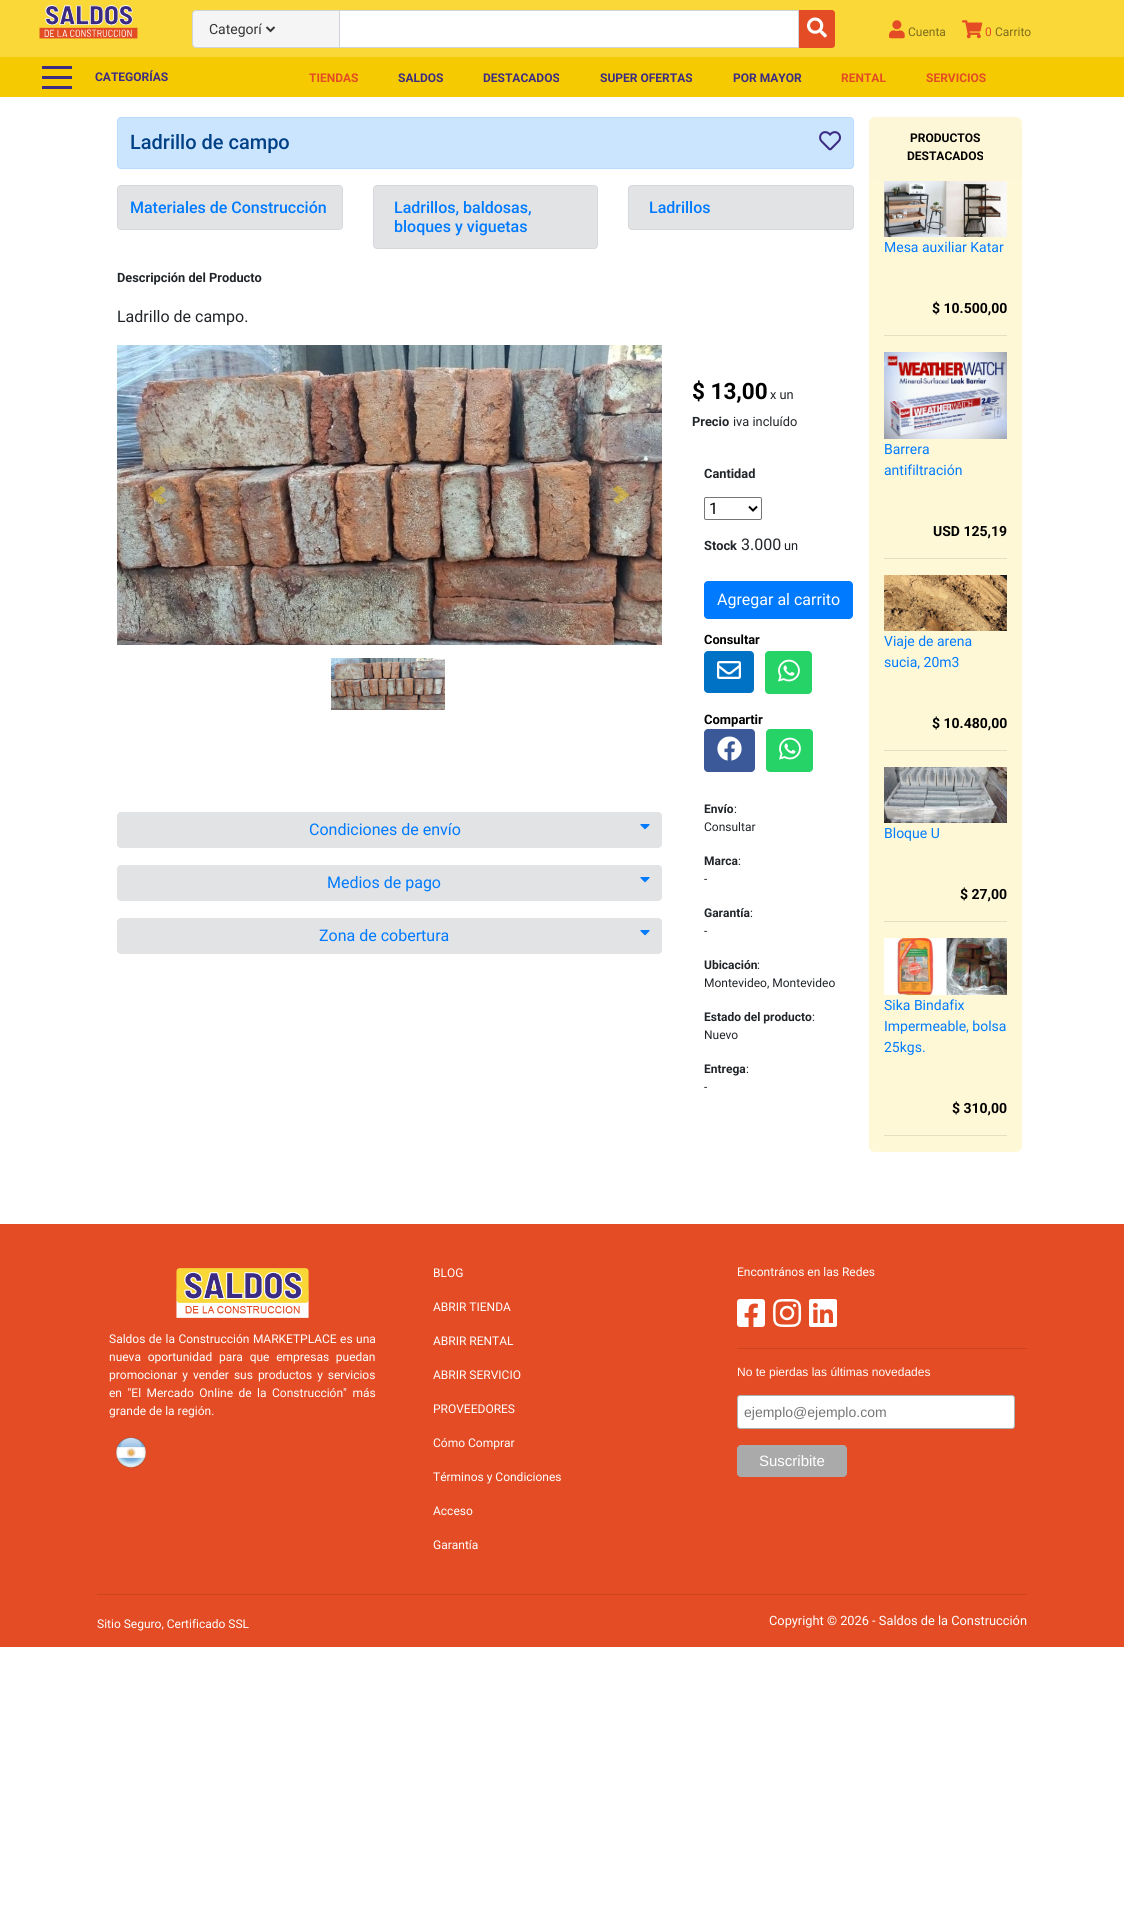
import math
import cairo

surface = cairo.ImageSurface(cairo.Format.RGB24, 1124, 1909)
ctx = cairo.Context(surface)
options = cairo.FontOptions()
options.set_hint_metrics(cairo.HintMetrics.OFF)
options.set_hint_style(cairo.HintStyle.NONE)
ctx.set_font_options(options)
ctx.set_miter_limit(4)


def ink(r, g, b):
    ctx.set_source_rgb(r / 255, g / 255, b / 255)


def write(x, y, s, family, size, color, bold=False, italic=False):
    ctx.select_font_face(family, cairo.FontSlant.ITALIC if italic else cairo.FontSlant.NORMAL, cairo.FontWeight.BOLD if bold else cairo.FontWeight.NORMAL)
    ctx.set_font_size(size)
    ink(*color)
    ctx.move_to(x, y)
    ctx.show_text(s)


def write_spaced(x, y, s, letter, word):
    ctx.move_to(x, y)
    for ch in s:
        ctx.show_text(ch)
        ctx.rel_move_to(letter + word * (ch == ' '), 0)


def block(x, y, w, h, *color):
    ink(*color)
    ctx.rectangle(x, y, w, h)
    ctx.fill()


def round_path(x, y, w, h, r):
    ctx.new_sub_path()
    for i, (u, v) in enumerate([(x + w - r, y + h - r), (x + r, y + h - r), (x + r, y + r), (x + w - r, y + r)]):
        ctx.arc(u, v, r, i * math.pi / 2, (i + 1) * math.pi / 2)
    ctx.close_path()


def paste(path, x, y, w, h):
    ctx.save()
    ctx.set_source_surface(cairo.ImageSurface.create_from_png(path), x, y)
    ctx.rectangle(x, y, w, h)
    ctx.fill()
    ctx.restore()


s1 = dict(family="Roboto", size=14, color=(53, 53, 53))
s2 = dict(family="Roboto", size=12, color=(125, 108, 28))
s3 = dict(family="Roboto", size=12, color=(227, 76, 36))
s4 = dict(family="Roboto", size=12, color=(61, 44, 131), bold=True)
s5 = dict(family="Roboto", size=12, color=(227, 76, 36), bold=True)
s6 = dict(family="Roboto Medium", size=20, color=(0, 64, 133))
s7 = dict(family="Roboto Medium", size=16, color=(0, 123, 255))
s8 = dict(family="Roboto", size=12.8, color=(33, 37, 41), bold=True)
s9 = dict(family="Roboto", size=16, color=(33, 37, 41))
s10 = dict(family="Roboto", size=16, color=(0, 123, 255))
s11 = dict(family="Roboto", size=22.5, color=(0, 0, 0), bold=True)
s12 = dict(family="Roboto", size=12.8, color=(33, 37, 41))
s13 = dict(family="Roboto", size=16, color=(0, 0, 0))
s14 = dict(family="Roboto", size=16, color=(255, 255, 255))
s15 = dict(family="Roboto", size=12.8, color=(0, 0, 0), bold=True)
s16 = dict(family="Roboto", size=13, color=(0, 0, 0), bold=True)
s17 = dict(family="Roboto", size=12, color=(33, 37, 41), bold=True)
s18 = dict(family="Roboto", size=12, color=(33, 37, 41))
s19 = dict(family="Roboto", size=12, color=(0, 0, 0), bold=True)
s20 = dict(family="Roboto", size=14, color=(0, 123, 255))
s21 = dict(family="Roboto", size=14, color=(0, 0, 0), bold=True)
s22 = dict(family="Roboto", size=12, color=(255, 255, 255))
s23 = dict(family="Liberation Sans", size=12, color=(255, 255, 255))
s24 = dict(family="Liberation Sans", size=14, color=(117, 117, 117))
s25 = dict(family="Liberation Sans", size=15, color=(255, 255, 255))
s26 = dict(family="Roboto", size=12.8, color=(255, 255, 255))

ink(255, 255, 255)
ctx.paint()
block(0, 0, 1124, 57, 250, 216, 55)
paste("pic1.png", 39, 5, 99, 34)
ink(245, 245, 245)
ctx.new_path()
ctx.move_to(196, 10.5)
ctx.line_to(339.5, 10.5)
ctx.line_to(339.5, 47.5)
ctx.line_to(196, 47.5)
ctx.curve_to(194, 47.5, 192.5, 46, 192.5, 44)
ctx.line_to(192.5, 14)
ctx.curve_to(192.5, 12, 194, 10.5, 196, 10.5)
ctx.close_path()
ctx.fill_preserve()
ink(206, 212, 218)
ctx.set_line_width(1)
ctx.stroke()
ctx.new_path()
ctx.move_to(266.5, 27)
ctx.line_to(270.5, 31)
ctx.line_to(274.5, 27)
ink(53, 53, 53)
ctx.set_line_width(2)
ctx.stroke()
write(209, 34, "Categorí", **s1)
ink(255, 255, 255)
ctx.rectangle(339.5, 10.5, 459, 37)
ctx.fill_preserve()
ink(206, 212, 218)
ctx.set_line_width(1)
ctx.stroke()
ink(227, 76, 36)
ctx.new_path()
ctx.move_to(799, 10)
ctx.line_to(832, 10)
ctx.curve_to(833.5, 10, 835, 11.5, 835, 13)
ctx.line_to(835, 45)
ctx.curve_to(835, 46.5, 833.5, 48, 832, 48)
ctx.line_to(799, 48)
ctx.close_path()
ctx.fill()
paste("pic2.png", 807, 17, 20, 21)
paste("pic3.png", 889, 20, 16, 19)
write(908, 36, "Cuenta", **s2)
paste("pic4.png", 962, 20, 21, 19)
write(985, 36, "0", **s3)
write(995, 36, "Carrito", **s2)
block(0, 57, 1124, 40, 245, 202, 0)
block(42, 76, 30, 3, 61, 44, 131)
block(42, 66, 30, 3, 61, 44, 131)
block(42, 86, 30, 3, 61, 44, 131)
write(95, 81, "CATEGORÍAS", **s4)
write(309, 82, "TIENDAS", **s5)
write(398, 82, "SALDOS", **s4)
write(483, 82, "DESTACADOS", **s4)
write(600, 82, "SUPER OFERTAS", **s4)
write(733, 82, "POR MAYOR", **s4)
write(841, 82, "RENTAL", **s5)
write(926, 82, "SERVICIOS", **s5)
ink(204, 229, 255)
round_path(117.5, 117.5, 736, 51, 3.5)
ctx.fill_preserve()
ink(184, 218, 255)
ctx.stroke()
write(130, 149, "Ladrillo de campo", **s6)
paste("pic5.png", 819, 131, 22, 20)
ink(226, 227, 229)
round_path(117.5, 185.5, 225, 44, 3.5)
ctx.fill_preserve()
ink(214, 216, 219)
ctx.stroke()
write(130, 213, "Materiales de Construcción", **s7)
ink(226, 227, 229)
round_path(373.5, 185.5, 224, 63, 3.5)
ctx.fill_preserve()
ink(214, 216, 219)
ctx.stroke()
write(394, 213, "Ladrillos, baldosas,", **s7)
write(394, 232, "bloques y viguetas", **s7)
ink(226, 227, 229)
round_path(628.5, 185.5, 225, 44, 3.5)
ctx.fill_preserve()
ink(214, 216, 219)
ctx.stroke()
write(649, 213, "Ladrillos", **s7)
write(117, 282, "Descripción del Producto", **s8)
write(117, 322, "Ladrillo de campo.", **s9)
paste("pic6.png", 117, 345, 545, 300)
paste("pic7.png", 150, 486, 17, 19)
paste("pic8.png", 612, 485, 18, 19)
paste("pic9.png", 331, 658, 114, 52)
ink(226, 227, 229)
round_path(117, 812, 545, 36, 4)
ctx.fill()
write(309, 835, "Condiciones de envío", **s10)
paste("pic10.png", 640, 824, 10, 6)
ink(226, 227, 229)
round_path(117, 865, 545, 36, 4)
ctx.fill()
write(327, 888, "Medios de pago", **s10)
paste("pic10.png", 640, 877, 10, 6)
ink(226, 227, 229)
round_path(117, 918, 545, 36, 4)
ctx.fill()
write(319, 941, "Zona de cobertura", **s10)
paste("pic10.png", 640, 930, 10, 6)
write(692, 399, "$ 13,00", **s11)
write(770, 399, "x un", **s12)
write(692, 426, "Precio", **s8)
write(733, 426, "iva incluído", **s12)
write(704, 478, "Cantidad", **s8)
round_path(704.5, 497.5, 57, 22, 1.5)
ink(118, 118, 118)
ctx.stroke()
ctx.new_path()
ctx.move_to(749, 506.5)
ctx.line_to(753, 510.5)
ctx.line_to(757, 506.5)
ink(0, 0, 0)
ctx.set_line_width(2)
ctx.stroke()
write(709, 514, "1", **s13)
write(704, 550, "Stock", **s8)
write(741, 550, "3.000", **s9)
write(784, 550, "un", **s12)
ink(0, 123, 255)
round_path(704.5, 581.5, 148, 37, 3.5)
ctx.fill_preserve()
ctx.set_line_width(1)
ctx.stroke()
write(717, 605, "Agregar al carrito", **s14)
write(704, 644, "Consultar", **s15)
ink(0, 114, 198)
round_path(704, 651, 50, 42, 4)
ctx.fill()
paste("pic11.png", 717, 661, 24, 18)
ink(37, 211, 102)
round_path(765, 651, 47, 43, 4)
ctx.fill()
paste("pic12.png", 778, 659, 22, 23)
write(704, 724, "Compartir", **s16)
ink(59, 89, 152)
round_path(704, 729, 51, 43, 4)
ctx.fill()
paste("pic13.png", 717, 736, 25, 25)
ink(37, 211, 102)
round_path(766, 729, 47, 43, 4)
ctx.fill()
paste("pic12.png", 779, 737, 22, 23)
write(704, 813, "Envío", **s17)
write(734, 813, ":", **s18)
write(704, 831, "Consultar", **s18)
write(704, 865, "Marca", **s17)
write(738, 865, ":", **s18)
write(704, 883, "-", **s18)
write(704, 917, "Garantía", **s17)
write(750, 917, ":", **s18)
write(704, 935, "-", **s18)
write(704, 969, "Ubicación", **s17)
write(757, 969, ":", **s18)
write(704, 987, "Montevideo, Montevideo", **s18)
write(704, 1021, "Estado del producto", **s17)
write(812, 1021, ":", **s18)
write(704, 1039, "Nuevo", **s18)
write(704, 1073, "Entrega", **s17)
write(746, 1073, ":", **s18)
write(704, 1091, "-", **s18)
ink(254, 247, 215)
ctx.new_path()
ctx.move_to(875, 117)
ctx.line_to(1016, 117)
ctx.curve_to(1019.5, 117, 1022, 119.5, 1022, 123)
ctx.line_to(1022, 181)
ctx.line_to(869, 181)
ctx.line_to(869, 123)
ctx.curve_to(869, 119.5, 871.5, 117, 875, 117)
ctx.close_path()
ctx.fill()
write(910, 142, "PRODUCTOS", **s19)
write(907, 160, "DESTACADOS", **s19)
ink(254, 248, 215)
ctx.new_path()
ctx.move_to(869, 181)
ctx.line_to(1022, 181)
ctx.line_to(1022, 1146)
ctx.curve_to(1022, 1149.5, 1019.5, 1152, 1016, 1152)
ctx.line_to(875, 1152)
ctx.curve_to(871.5, 1152, 869, 1149.5, 869, 1146)
ctx.close_path()
ctx.fill()
paste("pic14.png", 884, 181, 123, 56)
write(884, 252, "Mesa auxiliar Katar", **s20)
write(932, 313, "$ 10.500,00", **s21)
block(884, 335, 123, 1, 229, 223, 194)
paste("pic15.png", 884, 352, 123, 87)
write(884, 454, "Barrera", **s20)
write(884, 475, "antifiltración", **s20)
write(933, 536, "USD 125,19", **s21)
block(884, 558, 123, 1, 229, 223, 194)
paste("pic16.png", 884, 575, 123, 56)
write(884, 646, "Viaje de arena", **s20)
write(884, 667, "sucia, 20m3", **s20)
write(932, 728, "$ 10.480,00", **s21)
block(884, 750, 123, 1, 229, 223, 194)
paste("pic17.png", 884, 767, 123, 56)
write(884, 838, "Bloque U", **s20)
write(960, 899, "$ 27,00", **s21)
block(884, 921, 123, 1, 229, 223, 194)
paste("pic18.png", 884, 938, 123, 57)
write(884, 1010, "Sika Bindafix", **s20)
write(884, 1031, "Impermeable, bolsa", **s20)
write(884, 1052, "25kgs.", **s20)
write(952, 1113, "$ 310,00", **s21)
block(884, 1135, 123, 1, 229, 223, 194)
block(0, 1224, 1124, 423, 227, 76, 36)
paste("pic19.png", 176, 1268, 133, 50)
ctx.select_font_face("Roboto")
ctx.set_font_size(12)
ink(255, 255, 255)
write_spaced(109, 1343, "Saldos de la Construcción MARKETPLACE es una", 0, 0.5)
write_spaced(109, 1361, "nueva oportunidad para que empresas puedan", 0, 3.75)
write_spaced(109, 1379, "promocionar y vender sus productos y servicios", 0, 2)
write_spaced(109, 1397, "en \"El Mercado Online de la Construcción\" más", 0, 2.5)
write(109, 1415, "grande de la región.", **s22)
paste("pic20.png", 115, 1437, 32, 31)
write(433, 1277, "BLOG", **s22)
write(433, 1311, "ABRIR TIENDA", **s22)
write(433, 1345, "ABRIR RENTAL", **s22)
write(433, 1379, "ABRIR SERVICIO", **s22)
write(433, 1413, "PROVEEDORES", **s22)
write(433, 1447, "Cómo Comprar", **s22)
write(433, 1481, "Términos y Condiciones", **s22)
write(433, 1515, "Acceso", **s22)
write(433, 1549, "Garantía", **s22)
write(737, 1276, "Encontrános en las Redes", **s22)
paste("pic21.png", 737, 1299, 28, 28)
paste("pic22.png", 773, 1299, 29, 28)
paste("pic23.png", 809, 1299, 28, 28)
block(737, 1348, 290, 1, 204, 68, 32)
write(737, 1376, "No te pierdas las últimas novedades", **s23)
round_path(737.5, 1395.5, 277, 33, 2.5)
ctx.fill_preserve()
ink(171, 176, 178)
ctx.stroke()
write(744, 1417, "ejemplo@ejemplo.com", **s24)
ink(170, 170, 170)
round_path(737, 1445, 110, 32, 4)
ctx.fill()
write(759, 1466, "Suscribite", **s25)
block(97, 1594, 930, 1, 204, 68, 32)
write(97, 1628, "Sitio Seguro, Certificado SSL", **s22)
write(769, 1625, "Copyright © 2026 - Saldos de la Construcción", **s26)
surface.write_to_png("screenshot.png")
